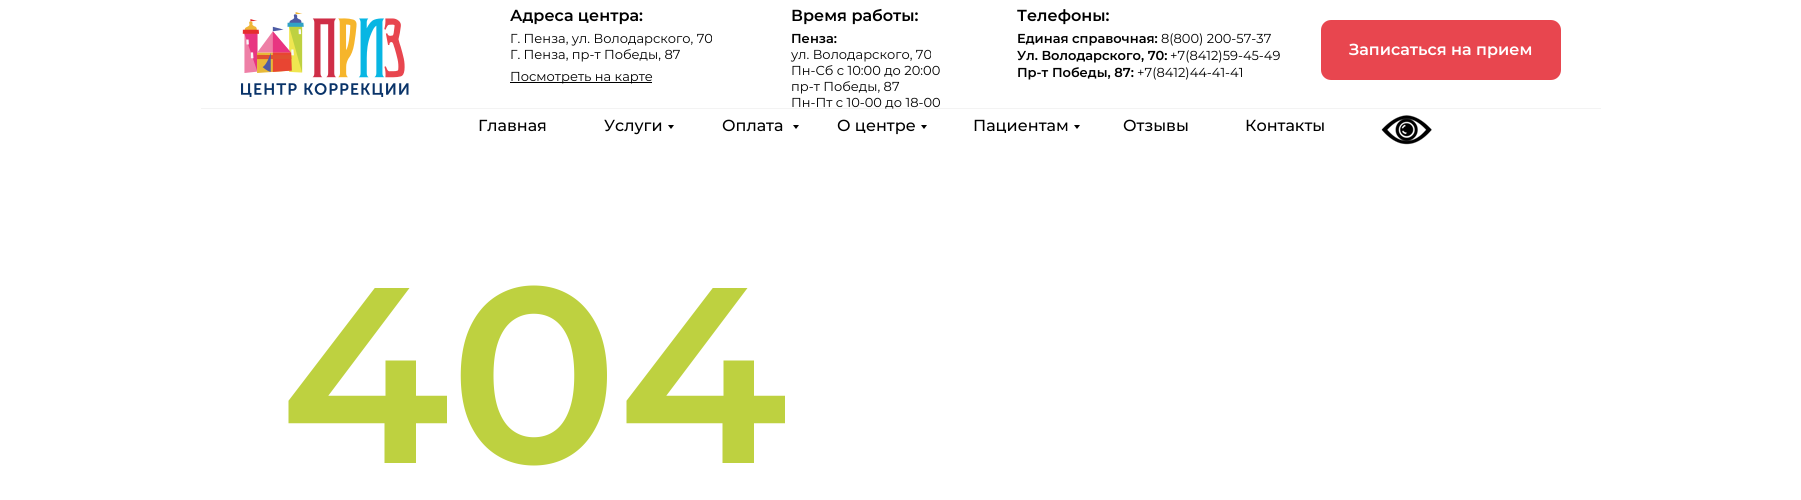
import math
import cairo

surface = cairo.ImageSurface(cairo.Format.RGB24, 1801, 500)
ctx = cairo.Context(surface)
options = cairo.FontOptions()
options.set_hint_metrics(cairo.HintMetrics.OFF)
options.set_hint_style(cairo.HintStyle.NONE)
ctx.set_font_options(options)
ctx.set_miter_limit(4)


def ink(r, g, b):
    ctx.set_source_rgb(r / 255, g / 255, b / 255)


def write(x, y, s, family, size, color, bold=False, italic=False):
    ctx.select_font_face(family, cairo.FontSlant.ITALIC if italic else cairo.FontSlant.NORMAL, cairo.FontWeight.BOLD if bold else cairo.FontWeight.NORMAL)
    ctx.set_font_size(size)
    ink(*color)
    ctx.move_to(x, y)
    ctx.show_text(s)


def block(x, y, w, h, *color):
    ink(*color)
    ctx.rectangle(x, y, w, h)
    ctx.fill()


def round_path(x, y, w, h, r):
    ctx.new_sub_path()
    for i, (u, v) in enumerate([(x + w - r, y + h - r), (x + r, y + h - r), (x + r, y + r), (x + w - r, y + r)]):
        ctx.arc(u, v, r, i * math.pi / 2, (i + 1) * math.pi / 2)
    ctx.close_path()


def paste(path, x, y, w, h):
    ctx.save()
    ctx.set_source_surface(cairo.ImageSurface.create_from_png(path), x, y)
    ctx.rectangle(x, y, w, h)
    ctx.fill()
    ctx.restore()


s1 = dict(family="Montserrat SemiBold", size=16, color=(0, 0, 0))
s2 = dict(family="Montserrat", size=13, color=(0, 0, 0))
s3 = dict(family="Montserrat SemiBold", size=13, color=(0, 0, 0))
s4 = dict(family="Montserrat SemiBold", size=16, color=(255, 255, 255))
s5 = dict(family="Montserrat Medium", size=16, color=(0, 0, 0))
s6 = dict(family="Montserrat SemiBold", size=250, color=(190, 209, 64))

ink(255, 255, 255)
ctx.paint()
paste("pic1.png", 241, 12, 168, 85)
write(510, 21, "Адреса центра:", **s1)
write(791, 21, "Время работы:", **s1)
write(1017, 21, "Телефоны:", **s1)
write(510, 43, "Г. Пенза, ул. Володарского, 70", **s2)
write(791, 43, "Пенза:", **s3)
write(791, 59, "ул. Володарского, 70", **s2)
write(791, 75, "Пн-Сб с 10:00 до 20:00", **s2)
write(791, 91, "пр-т Победы, 87", **s2)
write(791, 107, "Пн-Пт с 10-00 до 18-00", **s2)
write(1017, 43, "Единая справочная:", **s3)
write(1161, 43, "8(800) 200-57-37", **s2)
write(510, 59, "Г. Пенза, пр-т Победы, 87", **s2)
write(1017, 60, "Ул. Володарского, 70:", **s3)
write(1170, 60, "+7(8412)59-45-49", **s2)
ink(232, 70, 79)
round_path(1321, 20, 240, 60, 10)
ctx.fill()
write(1349, 55, "Записаться на прием", **s4)
block(510, 82, 142, 1, 0, 0, 0)
write(510, 81, "Посмотреть на карте", **s2)
write(1017, 77, "Пр-т Победы, 87:", **s3)
write(1137, 77, "+7(8412)44-41-41", **s2)
ctx.set_source_rgba(0.071, 0.071, 0.071, 0.05)
ctx.rectangle(201, 108, 1400, 1)
ctx.fill()
write(478, 131, "Главная", **s5)
write(604, 131, "Услуги", **s5)
ctx.new_path()
ctx.move_to(668, 125)
ctx.line_to(674, 125)
ctx.line_to(671, 129)
ctx.close_path()
ctx.fill()
write(722, 131, "Оплата", **s5)
ctx.new_path()
ctx.move_to(793, 125)
ctx.line_to(799, 125)
ctx.line_to(796, 129)
ctx.close_path()
ctx.fill()
write(837, 131, "О центре", **s5)
ctx.new_path()
ctx.move_to(921, 125)
ctx.line_to(927, 125)
ctx.line_to(924, 129)
ctx.close_path()
ctx.fill()
write(973, 131, "Пациентам", **s5)
ctx.new_path()
ctx.move_to(1074, 125)
ctx.line_to(1080, 125)
ctx.line_to(1077, 129)
ctx.close_path()
ctx.fill()
write(1123, 131, "Отзывы", **s5)
write(1245, 131, "Контакты", **s5)
paste("pic2.png", 1381, 115, 51, 30)
write(280, 463, "404", **s6)
surface.write_to_png("screenshot.png")
